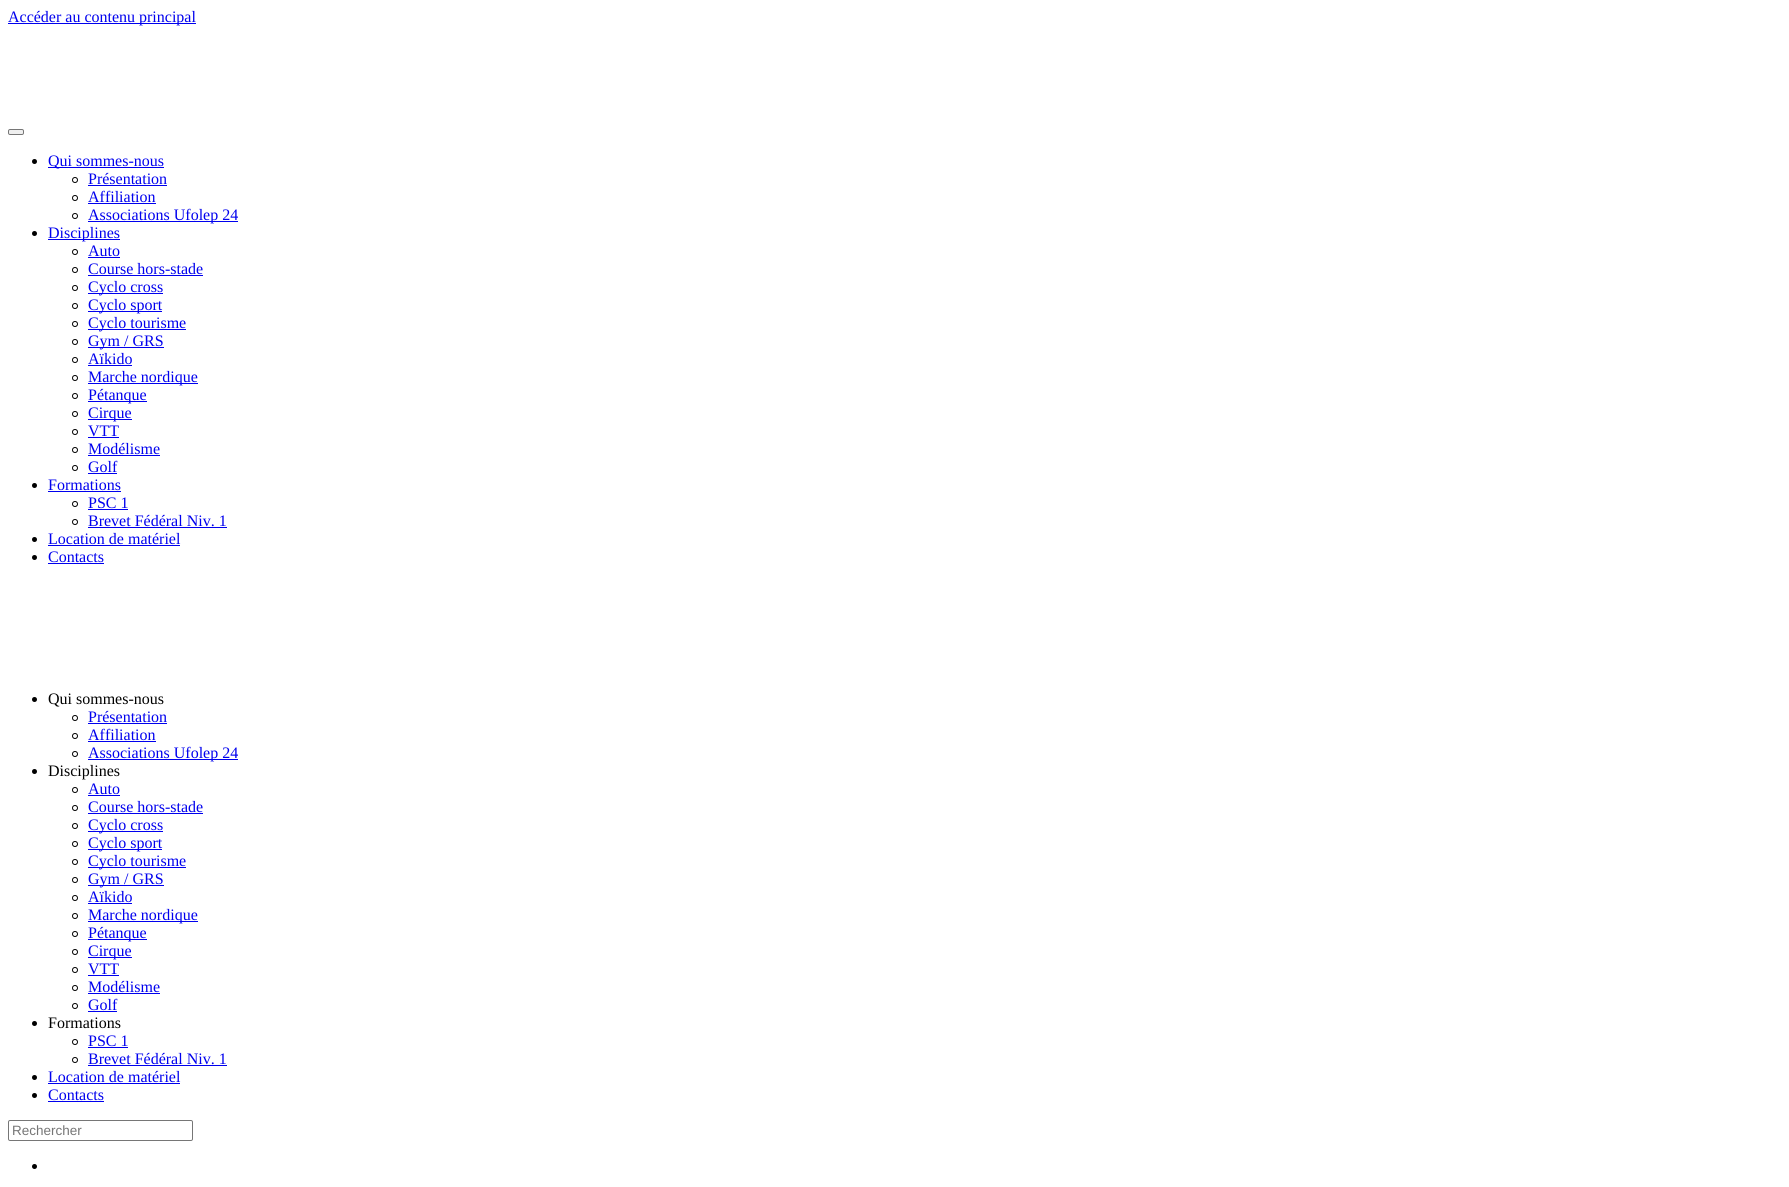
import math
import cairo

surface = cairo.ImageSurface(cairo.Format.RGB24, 1789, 1187)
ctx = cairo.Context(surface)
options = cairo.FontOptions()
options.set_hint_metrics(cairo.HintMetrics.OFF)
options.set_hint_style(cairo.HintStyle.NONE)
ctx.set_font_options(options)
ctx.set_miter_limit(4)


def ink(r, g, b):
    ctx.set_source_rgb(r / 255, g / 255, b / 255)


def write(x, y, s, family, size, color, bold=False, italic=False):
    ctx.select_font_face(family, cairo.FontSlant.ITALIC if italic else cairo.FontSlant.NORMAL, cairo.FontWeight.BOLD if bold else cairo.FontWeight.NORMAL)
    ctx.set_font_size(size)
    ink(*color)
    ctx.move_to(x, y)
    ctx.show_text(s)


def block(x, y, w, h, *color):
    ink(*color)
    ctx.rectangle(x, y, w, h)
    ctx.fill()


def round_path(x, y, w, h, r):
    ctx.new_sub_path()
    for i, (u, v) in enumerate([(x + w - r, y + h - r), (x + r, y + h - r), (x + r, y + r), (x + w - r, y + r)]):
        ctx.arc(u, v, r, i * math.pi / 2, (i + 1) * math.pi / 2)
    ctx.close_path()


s1 = dict(family="Liberation Serif", size=16, color=(0, 0, 238))
s2 = dict(family="Liberation Serif", size=16, color=(0, 0, 0))
s3 = dict(family="Liberation Sans", size=13.5, color=(117, 117, 117))

ink(255, 255, 255)
ctx.paint()
block(8, 23, 188, 1, 0, 0, 238)
write(8, 22, "Accéder au contenu principal", **s1)
ink(239, 239, 239)
round_path(8.5, 129.5, 15, 5, 1.5)
ctx.fill_preserve()
ink(118, 118, 118)
ctx.set_line_width(1)
ctx.stroke()
ink(0, 0, 0)
ctx.arc(34.5, 161.5, 2.5, 0, 2 * math.pi)
ctx.fill()
block(48, 167, 116, 1, 0, 0, 238)
write(48, 166, "Qui sommes-nous", **s1)
ctx.new_path()
ctx.arc(75, 180, 2.5, 0, 2 * math.pi)
ink(0, 0, 0)
ctx.stroke()
write(88, 184, "Présentation", **s1)
block(88, 185, 79, 1, 0, 0, 238)
ctx.new_path()
ctx.arc(75, 198, 2.5, 0, 2 * math.pi)
ink(0, 0, 0)
ctx.stroke()
write(88, 202, "Affiliation", **s1)
block(88, 203, 68, 1, 0, 0, 238)
ctx.new_path()
ctx.arc(75, 216, 2.5, 0, 2 * math.pi)
ink(0, 0, 0)
ctx.stroke()
block(88, 221, 150, 1, 0, 0, 238)
write(88, 220, "Associations Ufolep 24", **s1)
ink(0, 0, 0)
ctx.new_path()
ctx.arc(34.5, 233.5, 2.5, 0, 2 * math.pi)
ctx.fill()
block(48, 239, 72, 1, 0, 0, 238)
write(48, 238, "Disciplines", **s1)
ctx.new_path()
ctx.arc(75, 252, 2.5, 0, 2 * math.pi)
ink(0, 0, 0)
ctx.stroke()
write(88, 256, "Auto", **s1)
block(88, 257, 32, 1, 0, 0, 238)
ctx.new_path()
ctx.arc(75, 270, 2.5, 0, 2 * math.pi)
ink(0, 0, 0)
ctx.stroke()
write(88, 274, "Course hors-stade", **s1)
block(88, 275, 115, 1, 0, 0, 238)
ctx.new_path()
ctx.arc(75, 288, 2.5, 0, 2 * math.pi)
ink(0, 0, 0)
ctx.stroke()
block(88, 293, 75, 1, 0, 0, 238)
write(88, 292, "Cyclo cross", **s1)
ctx.new_path()
ctx.arc(75, 306, 2.5, 0, 2 * math.pi)
ink(0, 0, 0)
ctx.stroke()
block(88, 311, 74, 1, 0, 0, 238)
write(88, 310, "Cyclo sport", **s1)
ctx.new_path()
ctx.arc(75, 324, 2.5, 0, 2 * math.pi)
ink(0, 0, 0)
ctx.stroke()
block(88, 329, 98, 1, 0, 0, 238)
write(88, 328, "Cyclo tourisme", **s1)
ctx.new_path()
ctx.arc(75, 342, 2.5, 0, 2 * math.pi)
ink(0, 0, 0)
ctx.stroke()
block(88, 347, 76, 1, 0, 0, 238)
write(88, 346, "Gym / GRS", **s1)
ctx.new_path()
ctx.arc(75, 360, 2.5, 0, 2 * math.pi)
ink(0, 0, 0)
ctx.stroke()
write(88, 364, "Aïkido", **s1)
block(88, 365, 44, 1, 0, 0, 238)
ctx.new_path()
ctx.arc(75, 378, 2.5, 0, 2 * math.pi)
ink(0, 0, 0)
ctx.stroke()
block(88, 383, 110, 1, 0, 0, 238)
write(88, 382, "Marche nordique", **s1)
ctx.new_path()
ctx.arc(75, 396, 2.5, 0, 2 * math.pi)
ink(0, 0, 0)
ctx.stroke()
block(88, 401, 59, 1, 0, 0, 238)
write(88, 400, "Pétanque", **s1)
ctx.new_path()
ctx.arc(75, 414, 2.5, 0, 2 * math.pi)
ink(0, 0, 0)
ctx.stroke()
block(88, 419, 44, 1, 0, 0, 238)
write(88, 418, "Cirque", **s1)
ctx.new_path()
ctx.arc(75, 432, 2.5, 0, 2 * math.pi)
ink(0, 0, 0)
ctx.stroke()
write(88, 436, "VTT", **s1)
block(88, 437, 31, 1, 0, 0, 238)
ctx.new_path()
ctx.arc(75, 450, 2.5, 0, 2 * math.pi)
ink(0, 0, 0)
ctx.stroke()
write(88, 454, "Modélisme", **s1)
block(88, 455, 72, 1, 0, 0, 238)
ctx.new_path()
ctx.arc(75, 468, 2.5, 0, 2 * math.pi)
ink(0, 0, 0)
ctx.stroke()
write(88, 472, "Golf", **s1)
block(88, 473, 29, 1, 0, 0, 238)
ink(0, 0, 0)
ctx.new_path()
ctx.arc(34.5, 485.5, 2.5, 0, 2 * math.pi)
ctx.fill()
write(48, 490, "Formations", **s1)
block(48, 491, 73, 1, 0, 0, 238)
ctx.new_path()
ctx.arc(75, 504, 2.5, 0, 2 * math.pi)
ink(0, 0, 0)
ctx.stroke()
write(88, 508, "PSC 1", **s1)
block(88, 509, 40, 1, 0, 0, 238)
ctx.new_path()
ctx.arc(75, 522, 2.5, 0, 2 * math.pi)
ink(0, 0, 0)
ctx.stroke()
write(88, 526, "Brevet Fédéral Niv. 1", **s1)
block(88, 527, 139, 1, 0, 0, 238)
ink(0, 0, 0)
ctx.new_path()
ctx.arc(34.5, 539.5, 2.5, 0, 2 * math.pi)
ctx.fill()
write(48, 544, "Location de matériel", **s1)
block(48, 545, 132, 1, 0, 0, 238)
ink(0, 0, 0)
ctx.new_path()
ctx.arc(34.5, 557.5, 2.5, 0, 2 * math.pi)
ctx.fill()
write(48, 562, "Contacts", **s1)
block(48, 563, 56, 1, 0, 0, 238)
ink(0, 0, 0)
ctx.new_path()
ctx.arc(34.5, 699.5, 2.5, 0, 2 * math.pi)
ctx.fill()
write(48, 704, "Qui sommes-nous", **s2)
ctx.new_path()
ctx.arc(75, 718, 2.5, 0, 2 * math.pi)
ctx.stroke()
write(88, 722, "Présentation", **s1)
block(88, 723, 79, 1, 0, 0, 238)
ctx.new_path()
ctx.arc(75, 736, 2.5, 0, 2 * math.pi)
ink(0, 0, 0)
ctx.stroke()
write(88, 740, "Affiliation", **s1)
block(88, 741, 68, 1, 0, 0, 238)
ctx.new_path()
ctx.arc(75, 754, 2.5, 0, 2 * math.pi)
ink(0, 0, 0)
ctx.stroke()
block(88, 759, 150, 1, 0, 0, 238)
write(88, 758, "Associations Ufolep 24", **s1)
ink(0, 0, 0)
ctx.new_path()
ctx.arc(34.5, 771.5, 2.5, 0, 2 * math.pi)
ctx.fill()
write(48, 776, "Disciplines", **s2)
ctx.new_path()
ctx.arc(75, 790, 2.5, 0, 2 * math.pi)
ctx.stroke()
write(88, 794, "Auto", **s1)
block(88, 795, 32, 1, 0, 0, 238)
ctx.new_path()
ctx.arc(75, 808, 2.5, 0, 2 * math.pi)
ink(0, 0, 0)
ctx.stroke()
write(88, 812, "Course hors-stade", **s1)
block(88, 813, 115, 1, 0, 0, 238)
ctx.new_path()
ctx.arc(75, 826, 2.5, 0, 2 * math.pi)
ink(0, 0, 0)
ctx.stroke()
block(88, 831, 75, 1, 0, 0, 238)
write(88, 830, "Cyclo cross", **s1)
ctx.new_path()
ctx.arc(75, 844, 2.5, 0, 2 * math.pi)
ink(0, 0, 0)
ctx.stroke()
block(88, 849, 74, 1, 0, 0, 238)
write(88, 848, "Cyclo sport", **s1)
ctx.new_path()
ctx.arc(75, 862, 2.5, 0, 2 * math.pi)
ink(0, 0, 0)
ctx.stroke()
block(88, 867, 98, 1, 0, 0, 238)
write(88, 866, "Cyclo tourisme", **s1)
ctx.new_path()
ctx.arc(75, 880, 2.5, 0, 2 * math.pi)
ink(0, 0, 0)
ctx.stroke()
block(88, 885, 76, 1, 0, 0, 238)
write(88, 884, "Gym / GRS", **s1)
ctx.new_path()
ctx.arc(75, 898, 2.5, 0, 2 * math.pi)
ink(0, 0, 0)
ctx.stroke()
write(88, 902, "Aïkido", **s1)
block(88, 903, 44, 1, 0, 0, 238)
ctx.new_path()
ctx.arc(75, 916, 2.5, 0, 2 * math.pi)
ink(0, 0, 0)
ctx.stroke()
block(88, 921, 110, 1, 0, 0, 238)
write(88, 920, "Marche nordique", **s1)
ctx.new_path()
ctx.arc(75, 934, 2.5, 0, 2 * math.pi)
ink(0, 0, 0)
ctx.stroke()
block(88, 939, 59, 1, 0, 0, 238)
write(88, 938, "Pétanque", **s1)
ctx.new_path()
ctx.arc(75, 952, 2.5, 0, 2 * math.pi)
ink(0, 0, 0)
ctx.stroke()
block(88, 957, 44, 1, 0, 0, 238)
write(88, 956, "Cirque", **s1)
ctx.new_path()
ctx.arc(75, 970, 2.5, 0, 2 * math.pi)
ink(0, 0, 0)
ctx.stroke()
write(88, 974, "VTT", **s1)
block(88, 975, 31, 1, 0, 0, 238)
ctx.new_path()
ctx.arc(75, 988, 2.5, 0, 2 * math.pi)
ink(0, 0, 0)
ctx.stroke()
write(88, 992, "Modélisme", **s1)
block(88, 993, 72, 1, 0, 0, 238)
ctx.new_path()
ctx.arc(75, 1006, 2.5, 0, 2 * math.pi)
ink(0, 0, 0)
ctx.stroke()
write(88, 1010, "Golf", **s1)
block(88, 1011, 29, 1, 0, 0, 238)
ink(0, 0, 0)
ctx.new_path()
ctx.arc(34.5, 1023.5, 2.5, 0, 2 * math.pi)
ctx.fill()
write(48, 1028, "Formations", **s2)
ctx.new_path()
ctx.arc(75, 1042, 2.5, 0, 2 * math.pi)
ctx.stroke()
write(88, 1046, "PSC 1", **s1)
block(88, 1047, 40, 1, 0, 0, 238)
ctx.new_path()
ctx.arc(75, 1060, 2.5, 0, 2 * math.pi)
ink(0, 0, 0)
ctx.stroke()
write(88, 1064, "Brevet Fédéral Niv. 1", **s1)
block(88, 1065, 139, 1, 0, 0, 238)
ink(0, 0, 0)
ctx.new_path()
ctx.arc(34.5, 1077.5, 2.5, 0, 2 * math.pi)
ctx.fill()
write(48, 1082, "Location de matériel", **s1)
block(48, 1083, 132, 1, 0, 0, 238)
ink(0, 0, 0)
ctx.new_path()
ctx.arc(34.5, 1095.5, 2.5, 0, 2 * math.pi)
ctx.fill()
write(48, 1100, "Contacts", **s1)
block(48, 1101, 56, 1, 0, 0, 238)
round_path(8.5, 1120.5, 184, 20, 1.5)
ink(118, 118, 118)
ctx.stroke()
write(12, 1135, "Rechercher", **s3)
ink(0, 0, 0)
ctx.new_path()
ctx.arc(34.5, 1166.5, 2.5, 0, 2 * math.pi)
ctx.fill()
surface.write_to_png("screenshot.png")
